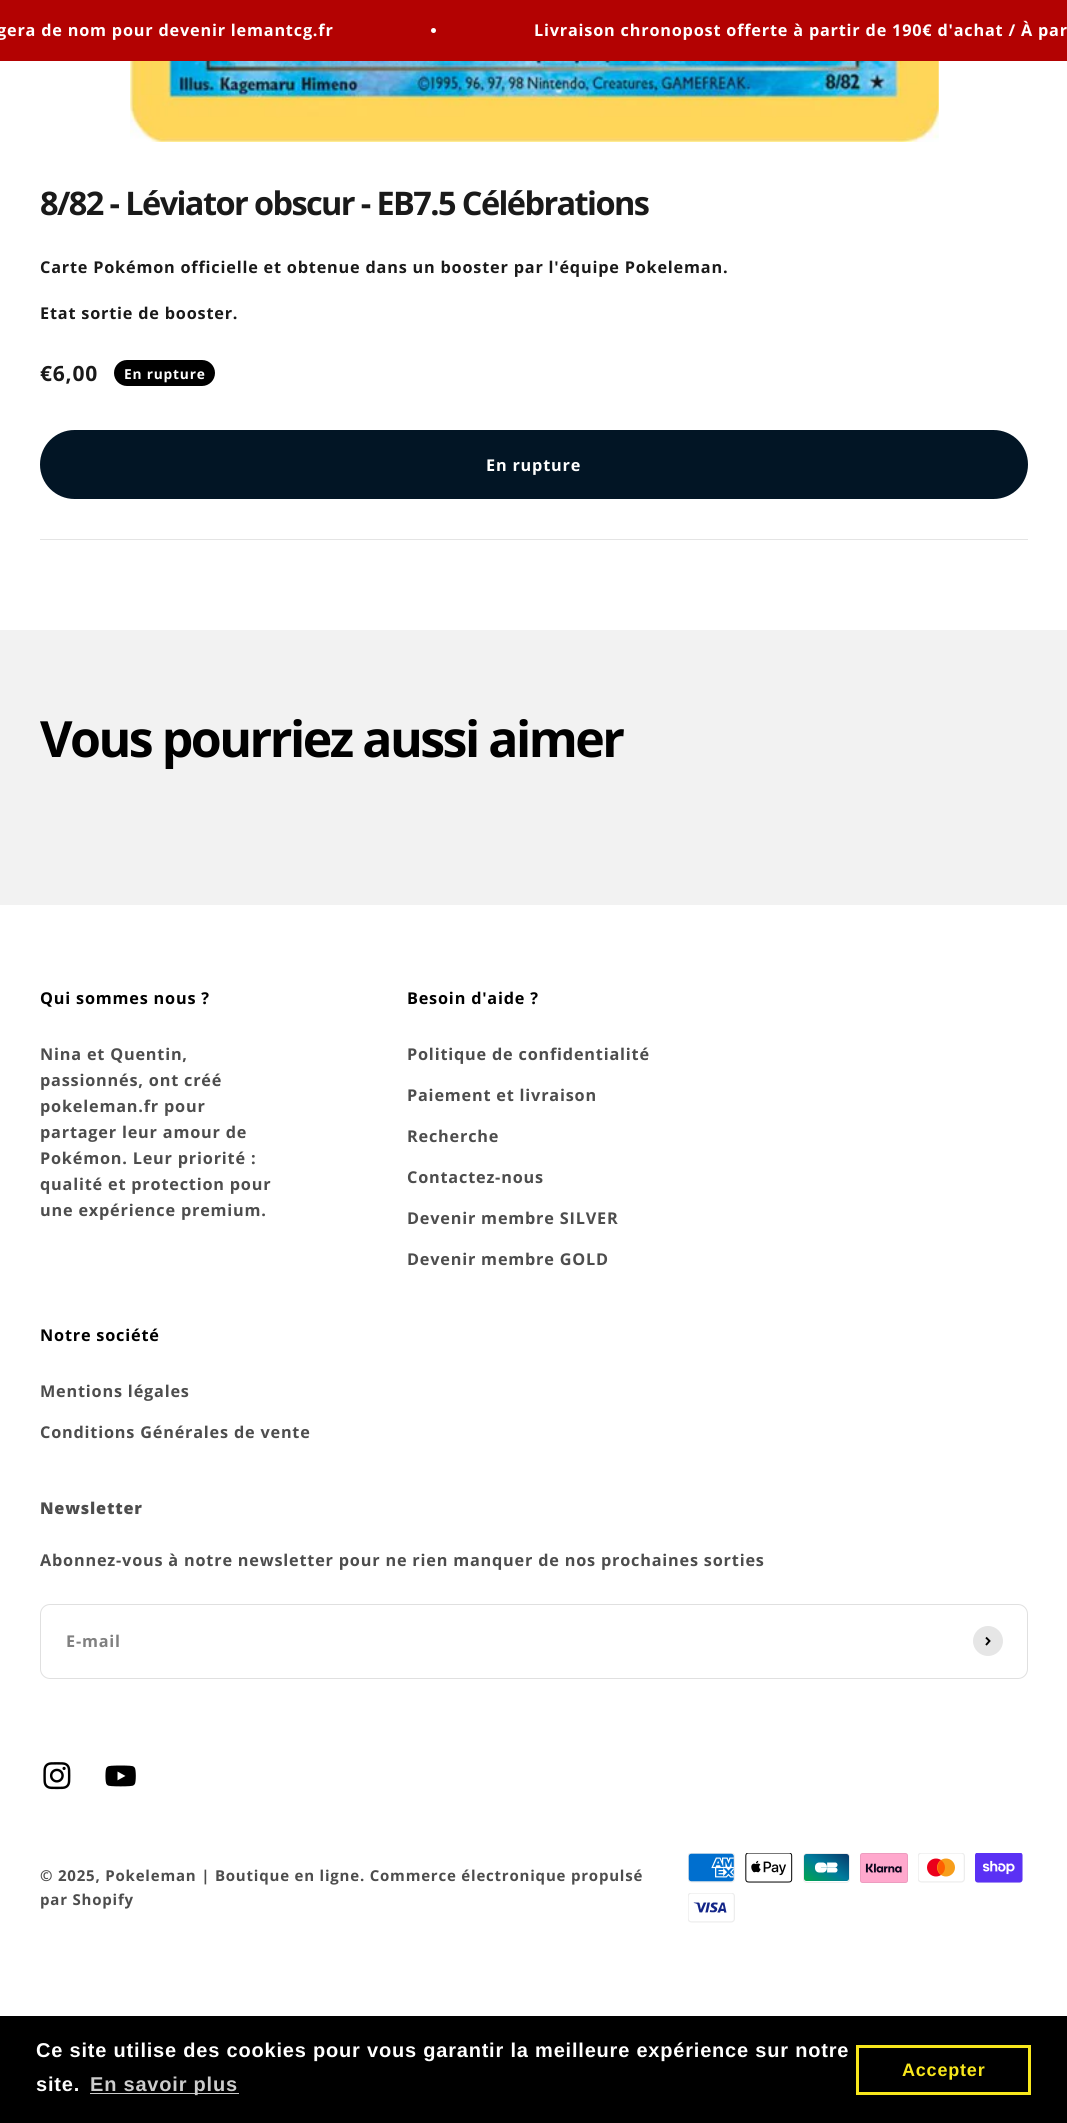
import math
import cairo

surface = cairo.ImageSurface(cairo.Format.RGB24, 1067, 2123)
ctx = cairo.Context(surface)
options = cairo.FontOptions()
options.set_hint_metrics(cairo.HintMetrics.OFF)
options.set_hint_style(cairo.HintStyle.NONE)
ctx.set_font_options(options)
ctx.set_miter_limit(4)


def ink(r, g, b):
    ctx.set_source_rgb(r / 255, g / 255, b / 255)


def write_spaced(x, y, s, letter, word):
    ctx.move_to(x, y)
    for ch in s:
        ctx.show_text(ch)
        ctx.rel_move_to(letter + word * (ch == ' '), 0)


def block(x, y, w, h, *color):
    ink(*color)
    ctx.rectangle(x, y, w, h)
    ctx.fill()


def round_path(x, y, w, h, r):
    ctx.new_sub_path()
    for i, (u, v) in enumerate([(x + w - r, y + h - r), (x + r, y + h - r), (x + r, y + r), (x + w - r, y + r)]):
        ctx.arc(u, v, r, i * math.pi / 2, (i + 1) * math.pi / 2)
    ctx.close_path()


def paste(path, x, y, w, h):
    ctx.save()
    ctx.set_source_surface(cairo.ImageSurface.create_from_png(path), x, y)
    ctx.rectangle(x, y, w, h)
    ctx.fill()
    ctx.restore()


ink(255, 255, 255)
ctx.paint()
block(0, 0, 1067, 61, 179, 2, 2)
ctx.select_font_face("Open Sans", cairo.FontSlant.NORMAL, cairo.FontWeight.BOLD)
ctx.set_font_size(16.25)
ink(255, 255, 255)
write_spaced(-3, 36, "gera de nom pour devenir lemantcg.fr", 0.8, 0)
ctx.new_path()
ctx.arc(433.5, 30.5, 2.5, 0, 2 * math.pi)
ctx.fill()
write_spaced(534, 36, "Livraison chronopost offerte à partir de 190€ d'achat / À par", 0.8, 0)
paste("pic1.png", 130, 61, 809, 81)
ctx.set_font_size(32.5)
ink(26, 26, 26)
write_spaced(40, 215, "8/82 - Léviator obscur - EB7.5 Célébrations", -1.6, 0)
ctx.set_font_size(16.25)
write_spaced(40, 273, "Carte Pokémon officielle et obtenue dans un booster par l'équipe Pokeleman.", 0.8, 0)
write_spaced(40, 319, "Etat sortie de booster.", 0.8, 0)
ctx.set_font_size(21)
write_spaced(40, 381, "€6,00", 0.8, 0)
ink(0, 0, 0)
round_path(114, 360, 101, 26, 13)
ctx.fill()
ctx.set_font_size(13.75)
ink(255, 255, 255)
write_spaced(124, 379, "En rupture", 0.8, 0)
ink(2, 21, 37)
round_path(40, 430, 988, 69, 34.5)
ctx.fill()
ctx.set_font_size(16.25)
ink(255, 255, 255)
write_spaced(486, 471, "En rupture", 0.8, 0)
block(40, 539, 988, 1, 228, 228, 228)
block(0, 630, 1067, 275, 242, 242, 242)
ctx.set_font_size(50)
ink(0, 0, 0)
write_spaced(40, 757, "Vous pourriez aussi aimer", -2.5, 0)
ctx.set_font_size(16.25)
write_spaced(40, 1004, "Qui sommes nous ?", 0.8, 0)
ink(77, 77, 77)
write_spaced(40, 1060, "Nina et Quentin,", 0.8, 0)
write_spaced(40, 1086, "passionnés, ont créé", 0.8, 0)
write_spaced(40, 1112, "pokeleman.fr pour", 0.8, 0)
write_spaced(40, 1138, "partager leur amour de", 0.8, 0)
write_spaced(40, 1164, "Pokémon. Leur priorité :", 0.8, 0)
write_spaced(40, 1190, "qualité et protection pour", 0.8, 0)
write_spaced(40, 1216, "une expérience premium.", 0.8, 0)
ink(0, 0, 0)
write_spaced(407, 1004, "Besoin d'aide ?", 0.8, 0)
ink(77, 77, 77)
write_spaced(407, 1060, "Politique de confidentialité", 0.8, 0)
write_spaced(407, 1101, "Paiement et livraison", 0.8, 0)
write_spaced(407, 1142, "Recherche", 0.8, 0)
write_spaced(407, 1183, "Contactez-nous", 0.8, 0)
write_spaced(407, 1224, "Devenir membre SILVER", 0.8, 0)
write_spaced(407, 1265, "Devenir membre GOLD", 0.8, 0)
ink(0, 0, 0)
write_spaced(40, 1341, "Notre société", 0.8, 0)
ink(77, 77, 77)
write_spaced(40, 1397, "Mentions légales", 0.8, 0)
write_spaced(40, 1438, "Conditions Générales de vente", 0.8, 0)
ctx.select_font_face("Open Sans ExtraBold")
write_spaced(40, 1514, "Newsletter", 0.8, 0)
ctx.select_font_face("Open Sans", cairo.FontSlant.NORMAL, cairo.FontWeight.BOLD)
write_spaced(40, 1566, "Abonnez-vous à notre newsletter pour ne rien manquer de nos prochaines sorties", 0.8, 0)
round_path(40.5, 1604.5, 987, 74, 9.5)
ink(224, 224, 224)
ctx.set_line_width(1)
ctx.stroke()
ink(128, 128, 128)
write_spaced(66, 1647, "E-mail", 0.8, 0)
ink(230, 230, 230)
ctx.new_path()
ctx.arc(988, 1641, 15, 0, 2 * math.pi)
ctx.fill()
ctx.new_path()
ctx.move_to(986, 1645)
ctx.line_to(989.5, 1641)
ctx.line_to(986, 1637.5)
ink(0, 0, 0)
ctx.set_line_width(1.9)
ctx.stroke()
paste("pic2.png", 43, 1762, 28, 28)
paste("pic3.png", 105, 1765, 31, 22)
ctx.set_font_size(15)
ink(77, 77, 77)
write_spaced(40, 1881, "© 2025, Pokeleman | Boutique en ligne. Commerce électronique propulsé", 0.8, 0)
write_spaced(40, 1905, "par Shopify", 0.8, 0)
paste("pic4.png", 688, 1853, 47, 30)
paste("pic5.png", 745, 1853, 48, 30)
paste("pic6.png", 803, 1853, 47, 30)
paste("pic7.png", 860, 1853, 48, 30)
paste("pic8.png", 918, 1853, 47, 30)
paste("pic9.png", 975, 1853, 48, 30)
paste("pic10.png", 688, 1893, 47, 30)
block(0, 2016, 1067, 107, 0, 0, 0)
ctx.select_font_face("Liberation Sans", cairo.FontSlant.NORMAL, cairo.FontWeight.BOLD)
ctx.set_font_size(20)
ink(255, 255, 255)
write_spaced(36, 2057, "Ce site utilise des cookies pour vous garantir la meilleure expérience sur notre", 0.8, 0)
write_spaced(36, 2091, "site.", 0.8, 0)
block(90, 2093, 149, 1, 204, 204, 204)
write_spaced(90, 2091, "En savoir plus", 0.8, 0)
ctx.rectangle(857.5, 2046.5, 172, 47)
ink(248, 231, 28)
ctx.set_line_width(3)
ctx.stroke()
ctx.set_font_size(18)
write_spaced(902, 2076, "Accepter", 0.8, 0)
surface.write_to_png("screenshot.png")
